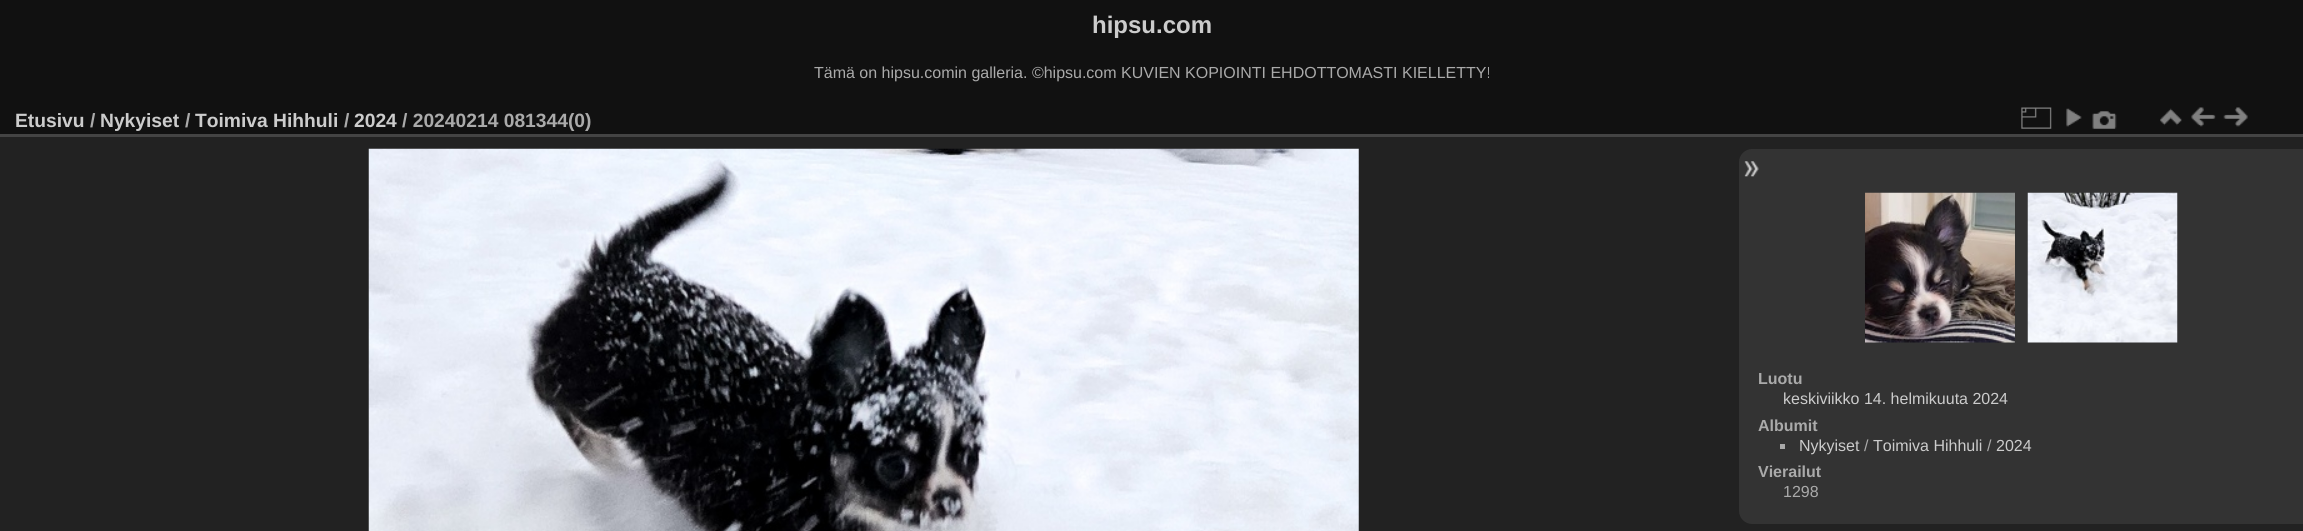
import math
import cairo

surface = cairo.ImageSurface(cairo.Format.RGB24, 2303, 531)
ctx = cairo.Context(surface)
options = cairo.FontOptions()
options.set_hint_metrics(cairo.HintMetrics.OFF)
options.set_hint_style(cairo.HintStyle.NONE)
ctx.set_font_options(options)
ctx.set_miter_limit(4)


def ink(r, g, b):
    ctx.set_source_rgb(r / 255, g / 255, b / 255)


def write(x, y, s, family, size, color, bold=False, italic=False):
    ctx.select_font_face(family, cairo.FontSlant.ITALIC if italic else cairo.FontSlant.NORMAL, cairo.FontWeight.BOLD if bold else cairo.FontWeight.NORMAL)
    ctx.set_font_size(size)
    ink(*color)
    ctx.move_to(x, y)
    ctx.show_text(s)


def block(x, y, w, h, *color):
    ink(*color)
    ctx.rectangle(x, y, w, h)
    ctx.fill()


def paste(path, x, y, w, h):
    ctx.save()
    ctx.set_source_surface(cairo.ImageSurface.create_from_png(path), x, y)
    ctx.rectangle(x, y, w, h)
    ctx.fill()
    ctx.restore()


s1 = dict(family="Liberation Sans", size=24, color=(204, 204, 204), bold=True)
s2 = dict(family="Liberation Sans", size=16, color=(170, 170, 170))
s3 = dict(family="Liberation Sans", size=19.25, color=(204, 204, 204), bold=True)
s4 = dict(family="Liberation Sans", size=19.25, color=(170, 170, 170), bold=True)
s5 = dict(family="Liberation Sans", size=16, color=(170, 170, 170), bold=True)
s6 = dict(family="Liberation Sans", size=16, color=(204, 204, 204))

ink(17, 17, 17)
ctx.paint()
write(1092, 33, "hipsu.com", **s1)
write(814, 78, "Tämä on hipsu.comin galleria. ©hipsu.com KUVIEN KOPIOINTI EHDOTTOMASTI KIELLETTY!", **s2)
block(0, 137, 2303, 394, 34, 34, 34)
block(0, 134, 2303, 3, 68, 68, 68)
write(15, 127, "Etusivu", **s3)
write(90, 127, "/", **s4)
write(100, 127, "Nykyiset", **s3)
write(185, 127, "/", **s4)
write(195, 127, "Toimiva Hihhuli", **s3)
write(344, 127, "/", **s4)
write(354, 127, "2024", **s3)
write(402, 127, "/ 20240214 081344(0)", **s4)
paste("pic1.png", 2021, 107, 31, 22)
paste("pic2.png", 2066, 108, 16, 19)
paste("pic3.png", 2092, 111, 25, 18)
paste("pic4.png", 2160, 108, 22, 18)
paste("pic5.png", 2191, 107, 25, 20)
paste("pic6.png", 2223, 107, 25, 20)
paste("pic7.png", 368, 148, 991, 383)
ink(51, 51, 51)
ctx.new_path()
ctx.move_to(1752, 149)
ctx.line_to(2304, 149)
ctx.line_to(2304, 524)
ctx.line_to(1752, 524)
ctx.curve_to(1745, 524, 1739, 518, 1739, 511)
ctx.line_to(1739, 162)
ctx.curve_to(1739, 155, 1745, 149, 1752, 149)
ctx.close_path()
ctx.fill()
paste("pic8.png", 1744, 161, 15, 16)
paste("pic9.png", 1865, 192, 150, 151)
paste("pic10.png", 2027, 192, 151, 151)
write(1758, 384, "Luotu", **s5)
write(1783, 404, "keskiviikko 14. helmikuuta 2024", **s6)
write(1758, 431, "Albumit", **s5)
block(1780, 444, 5, 5, 170, 170, 170)
write(1799, 451, "Nykyiset", **s6)
write(1864, 451, "/", **s2)
write(1873, 451, "Toimiva Hihhuli", **s6)
write(1987, 451, "/", **s2)
write(1996, 451, "2024", **s6)
write(1758, 477, "Vierailut", **s5)
write(1783, 497, "1298", **s2)
surface.write_to_png("screenshot.png")
